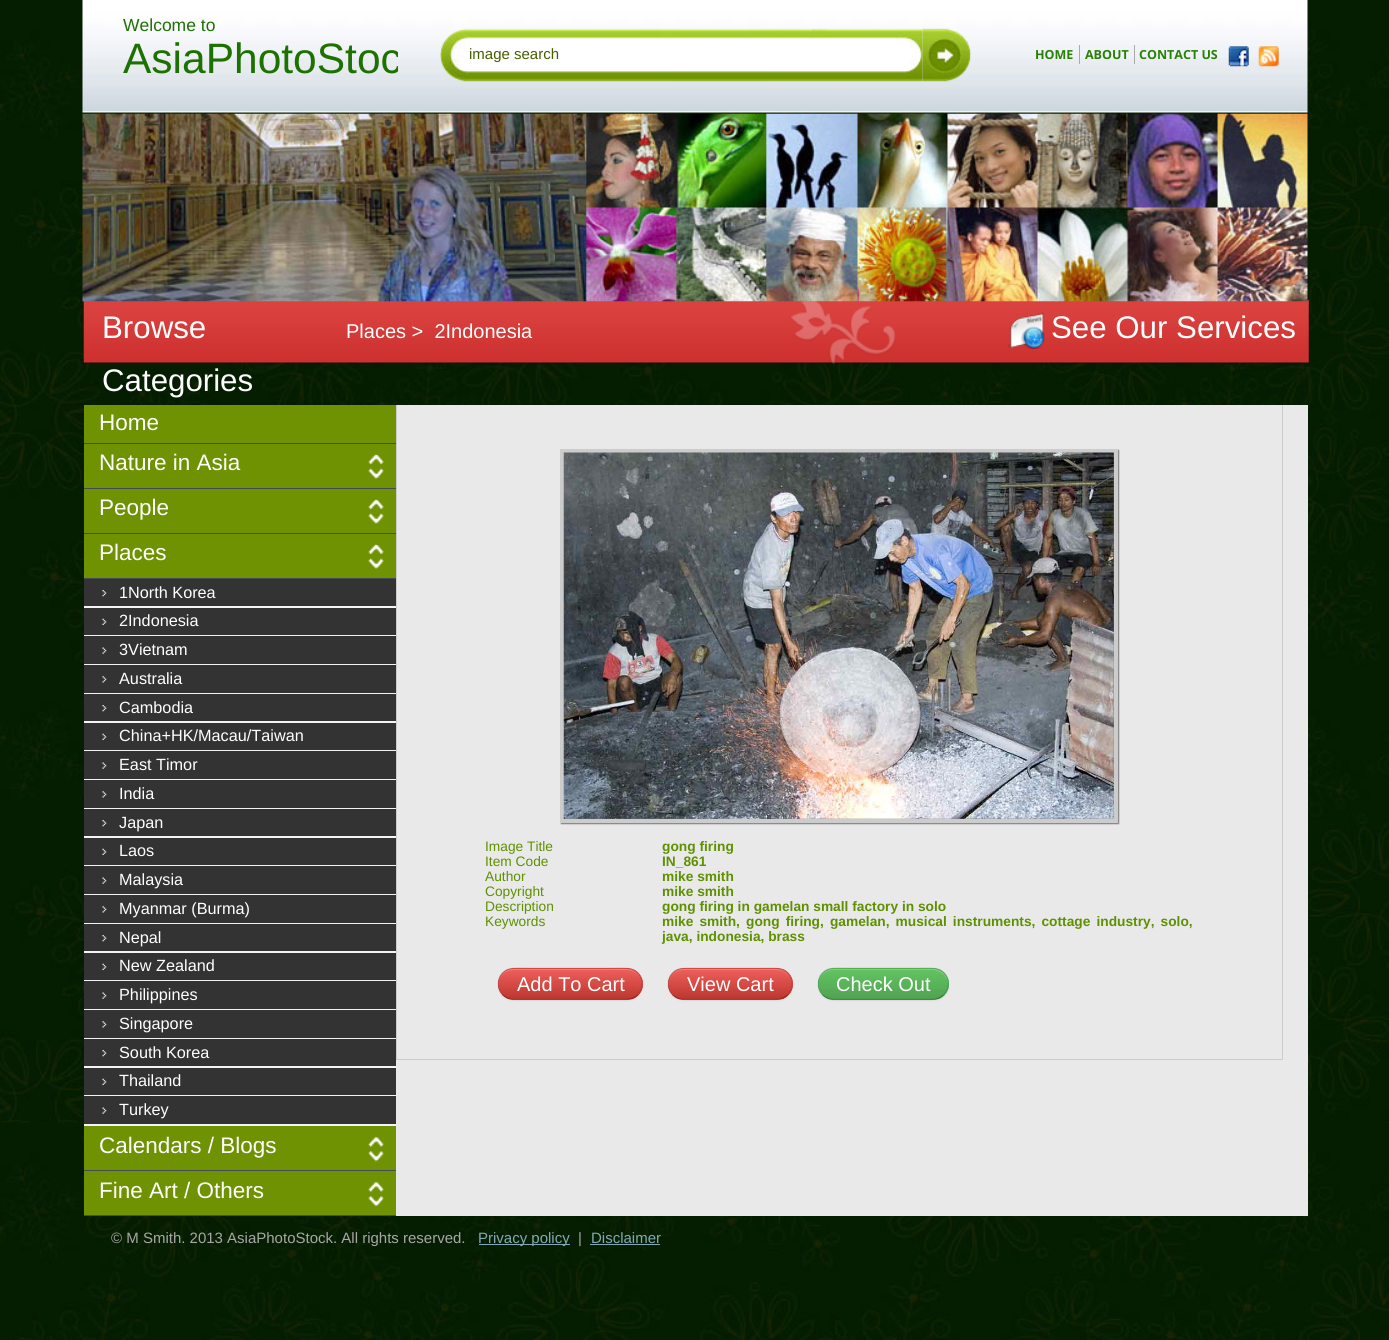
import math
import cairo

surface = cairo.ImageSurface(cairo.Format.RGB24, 1389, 1340)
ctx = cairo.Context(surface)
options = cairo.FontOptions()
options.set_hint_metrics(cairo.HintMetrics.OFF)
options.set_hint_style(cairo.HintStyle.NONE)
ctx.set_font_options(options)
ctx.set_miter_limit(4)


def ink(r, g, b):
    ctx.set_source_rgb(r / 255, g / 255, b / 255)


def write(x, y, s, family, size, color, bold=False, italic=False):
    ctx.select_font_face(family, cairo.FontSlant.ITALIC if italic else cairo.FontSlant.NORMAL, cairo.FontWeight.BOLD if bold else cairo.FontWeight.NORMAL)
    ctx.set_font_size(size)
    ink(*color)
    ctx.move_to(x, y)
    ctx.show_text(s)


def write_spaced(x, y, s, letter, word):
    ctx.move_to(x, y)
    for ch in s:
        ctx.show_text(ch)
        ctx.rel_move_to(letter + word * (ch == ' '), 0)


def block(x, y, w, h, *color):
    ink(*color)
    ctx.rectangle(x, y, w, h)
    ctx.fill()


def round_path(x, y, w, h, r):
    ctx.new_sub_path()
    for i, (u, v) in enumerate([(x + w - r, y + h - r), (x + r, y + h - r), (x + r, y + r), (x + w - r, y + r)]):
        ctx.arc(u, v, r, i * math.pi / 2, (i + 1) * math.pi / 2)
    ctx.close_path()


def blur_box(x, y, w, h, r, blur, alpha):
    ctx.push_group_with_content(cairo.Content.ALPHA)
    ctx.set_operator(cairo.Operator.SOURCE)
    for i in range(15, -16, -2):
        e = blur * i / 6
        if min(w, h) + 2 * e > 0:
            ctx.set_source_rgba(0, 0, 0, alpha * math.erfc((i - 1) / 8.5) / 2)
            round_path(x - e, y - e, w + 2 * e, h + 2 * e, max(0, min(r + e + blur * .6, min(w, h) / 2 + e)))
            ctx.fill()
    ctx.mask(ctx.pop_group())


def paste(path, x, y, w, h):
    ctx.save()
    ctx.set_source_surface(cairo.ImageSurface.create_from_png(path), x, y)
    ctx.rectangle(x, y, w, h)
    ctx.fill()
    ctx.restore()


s1 = dict(family="Liberation Sans", size=17.5, color=(28, 113, 0))
s2 = dict(family="Liberation Sans", size=42.5, color=(28, 113, 0))
s3 = dict(family="Liberation Sans", size=15, color=(71, 94, 0))
s4 = dict(family="Open Sans", size=12.5, color=(39, 130, 5), bold=True)
s5 = dict(family="Liberation Sans", size=31.25, color=(255, 255, 255))
s6 = dict(family="Liberation Sans", size=20, color=(255, 255, 255))
s7 = dict(family="Liberation Sans", size=22.5, color=(255, 255, 255))
s8 = dict(family="Liberation Sans", size=16.25, color=(255, 255, 255))
s9 = dict(family="Liberation Sans", size=13.75, color=(95, 144, 0))
s10 = dict(family="Liberation Sans", size=13.75, color=(95, 144, 0), bold=True)
s11 = dict(family="Liberation Sans", size=15, color=(167, 167, 167))
s12 = dict(family="Liberation Sans", size=15, color=(130, 169, 181))

ink(255, 255, 255)
ctx.paint()
paste("pic1.png", 0, 0, 1389, 1340)
paste("pic2.png", 626, 112, 425, 2)
paste("pic3.png", 82, 0, 1226, 113)
write(123, 31, "Welcome to", **s1)
ctx.save()
ctx.rectangle(123, 41, 275, 45)
ctx.clip()
write(123, 73, "AsiaPhotoStoc", **s2)
ctx.restore()
paste("pic4.png", 440, 28, 483, 54)
write(469, 59, "image search", **s3)
paste("pic5.png", 922, 28, 50, 54)
write(1035, 59, "HOME", **s4)
block(1079, 45, 1, 19, 170, 170, 170)
write(1085, 59, "ABOUT", **s4)
block(1134, 45, 1, 19, 170, 170, 170)
write(1139, 59, "CONTACT US", **s4)
paste("pic6.png", 1228, 46, 21, 21)
paste("pic7.png", 1258, 46, 21, 21)
paste("pic9.png", 83, 300, 1226, 64)
paste("pic8.png", 82, 113, 1226, 189)
write(102, 338, "Browse", **s5)
write(102, 391, "Categories", **s5)
write(346, 338, "Places >  2Indonesia", **s6)
paste("pic10.png", 1007, 312, 38, 37)
write(1051, 338, "See Our Services", **s5)
block(396, 405, 912, 811, 233, 233, 233)
block(84, 443, 312, 773, 69, 75, 84)
block(84, 405, 312, 38, 111, 146, 3)
write(99, 430, "Home", **s7)
block(84, 444, 312, 44, 111, 146, 3)
paste("pic11.png", 368, 454, 16, 25)
write(99, 470, "Nature in Asia", **s7)
block(84, 489, 312, 44, 111, 146, 3)
paste("pic11.png", 368, 499, 16, 25)
write(99, 515, "People", **s7)
block(84, 534, 312, 44, 111, 146, 3)
paste("pic11.png", 368, 544, 16, 25)
write(99, 560, "Places", **s7)
block(84, 606, 312, 520, 244, 244, 248)
block(84, 579, 312, 27, 51, 51, 51)
paste("pic12.png", 102, 590, 5, 7)
write(119, 598, "1North Korea", **s8)
block(84, 608, 312, 27, 51, 51, 51)
paste("pic13.png", 102, 618, 5, 7)
write(119, 626, "2Indonesia", **s8)
block(84, 636, 312, 28, 51, 51, 51)
paste("pic14.png", 102, 647, 5, 7)
write(119, 655, "3Vietnam", **s8)
block(84, 665, 312, 28, 51, 51, 51)
paste("pic15.png", 102, 676, 5, 7)
write(119, 684, "Australia", **s8)
block(84, 694, 312, 27, 51, 51, 51)
paste("pic12.png", 102, 705, 5, 7)
write(119, 713, "Cambodia", **s8)
block(84, 723, 312, 27, 51, 51, 51)
paste("pic13.png", 102, 733, 5, 7)
write(119, 741, "China+HK/Macau/Taiwan", **s8)
block(84, 751, 312, 28, 51, 51, 51)
paste("pic14.png", 102, 762, 5, 7)
write(119, 770, "East Timor", **s8)
block(84, 780, 312, 28, 51, 51, 51)
paste("pic15.png", 102, 791, 5, 7)
write(119, 799, "India", **s8)
block(84, 809, 312, 27, 51, 51, 51)
paste("pic12.png", 102, 820, 5, 7)
write(119, 828, "Japan", **s8)
block(84, 838, 312, 27, 51, 51, 51)
paste("pic13.png", 102, 848, 5, 7)
write(119, 856, "Laos", **s8)
block(84, 866, 312, 28, 51, 51, 51)
paste("pic14.png", 102, 877, 5, 7)
write(119, 885, "Malaysia", **s8)
block(84, 895, 312, 28, 51, 51, 51)
paste("pic15.png", 102, 906, 5, 7)
write(119, 914, "Myanmar (Burma)", **s8)
block(84, 924, 312, 27, 51, 51, 51)
paste("pic12.png", 102, 935, 5, 7)
write(119, 943, "Nepal", **s8)
block(84, 953, 312, 27, 51, 51, 51)
paste("pic13.png", 102, 963, 5, 7)
write(119, 971, "New Zealand", **s8)
block(84, 981, 312, 28, 51, 51, 51)
paste("pic14.png", 102, 992, 5, 7)
write(119, 1000, "Philippines", **s8)
block(84, 1010, 312, 28, 51, 51, 51)
paste("pic15.png", 102, 1021, 5, 7)
write(119, 1029, "Singapore", **s8)
block(84, 1039, 312, 27, 51, 51, 51)
paste("pic12.png", 102, 1050, 5, 7)
write(119, 1058, "South Korea", **s8)
block(84, 1068, 312, 27, 51, 51, 51)
paste("pic13.png", 102, 1078, 5, 7)
write(119, 1086, "Thailand", **s8)
block(84, 1096, 312, 28, 51, 51, 51)
paste("pic14.png", 102, 1107, 5, 7)
write(119, 1115, "Turkey", **s8)
block(84, 1126, 312, 44, 111, 146, 3)
paste("pic16.png", 368, 1136, 16, 26)
write(99, 1153, "Calendars / Blogs", **s7)
block(84, 1171, 312, 44, 111, 146, 3)
paste("pic16.png", 368, 1181, 16, 26)
write(99, 1198, "Fine Art / Others", **s7)
ctx.save()
ctx.rectangle(84, 405, 1224, 811)
ctx.clip()
ctx.rectangle(396.5, 404.5, 886, 655)
ink(204, 204, 204)
ctx.set_line_width(1)
ctx.stroke()
ctx.restore()
ink(126, 126, 126)
blur_box(561, 450, 558, 374, 0, 0.5, 1)
ctx.rectangle(562, 451, 554, 370)
ink(204, 204, 204)
ctx.set_line_width(4)
ctx.stroke()
paste("pic17.png", 563, 452, 551, 367)
write(485, 851, "Image Title", **s9)
write(662, 851, "gong firing", **s10)
write(485, 866, "Item Code", **s9)
write(662, 866, "IN_861", **s10)
write(485, 881, "Author", **s9)
write(662, 881, "mike smith", **s10)
write(485, 896, "Copyright", **s9)
write(662, 896, "mike smith", **s10)
write(485, 911, "Description", **s9)
write(662, 911, "gong firing in gamelan small factory in solo", **s10)
write(485, 926, "Keywords", **s9)
ctx.select_font_face("Liberation Sans", cairo.FontSlant.NORMAL, cairo.FontWeight.BOLD)
write_spaced(662, 926, "mike smith, gong firing, gamelan, musical instruments, cottage industry, solo,", 0, 2.25)
write(662, 941, "java, indonesia, brass", **s10)
ink(0, 0, 0)
blur_box(498, 969, 145, 32, 16, 1, 0.05)
ink(218, 79, 73)
round_path(498, 968, 145, 32, 16)
ctx.fill()
ctx.save()
round_path(498, 968, 145, 32, 16)
ctx.clip()
gradient = cairo.LinearGradient(570, 969, 570, 999)
gradient.add_color_stop_rgba(0, 0.933, 0.373, 0.357, 1)
gradient.add_color_stop_rgba(1, 0.741, 0.212, 0.184, 1)
ctx.set_source(gradient)
ctx.rectangle(498, 969, 145, 30)
ctx.fill()
ctx.restore()
ctx.set_source_rgba(1, 1, 1, 0.2)
ctx.new_path()
ctx.move_to(514, 970)
ctx.line_to(626, 970)
ctx.curve_to(635, 970, 641, 977, 641, 984)
ctx.curve_to(641, 976, 634, 969, 626, 969)
ctx.line_to(514, 969)
ctx.curve_to(506, 969, 499, 976, 499, 984)
ctx.curve_to(499, 977, 505, 970, 514, 970)
ctx.close_path()
ctx.fill()
ctx.new_path()
ctx.move_to(637.5, 995)
ctx.curve_to(634.5, 997.5, 630.5, 999.5, 626, 999.5)
ctx.line_to(514, 999.5)
ctx.curve_to(509.5, 999.5, 505.5, 997.5, 502.5, 995)
ctx.set_source_rgba(0, 0, 0, 0.25)
ctx.set_line_width(1.2)
ctx.stroke()
ctx.new_path()
ctx.move_to(502.5, 995)
ctx.curve_to(499, 991, 497.5, 986, 498.5, 980.5)
ctx.curve_to(501.5, 964.5, 520.5, 968, 532.5, 968)
ctx.line_to(607.5, 968)
ctx.curve_to(619.5, 968, 638.5, 964.5, 641.5, 980.5)
ctx.curve_to(642.5, 986, 641, 991, 637.5, 995)
ctx.set_source_rgba(0, 0, 0, 0.1)
ctx.stroke()
write(517, 991, "Add To Cart", **s6)
ink(0, 0, 0)
blur_box(668, 969, 125, 32, 16, 1, 0.05)
ink(218, 79, 73)
round_path(668, 968, 125, 32, 16)
ctx.fill()
ctx.save()
round_path(668, 968, 125, 32, 16)
ctx.clip()
gradient = cairo.LinearGradient(730, 969, 730, 999)
gradient.add_color_stop_rgba(0, 0.933, 0.373, 0.357, 1)
gradient.add_color_stop_rgba(1, 0.741, 0.212, 0.184, 1)
ctx.set_source(gradient)
ctx.rectangle(668, 969, 125, 30)
ctx.fill()
ctx.restore()
ctx.set_source_rgba(1, 1, 1, 0.2)
ctx.new_path()
ctx.move_to(684, 970)
ctx.line_to(776, 970)
ctx.curve_to(785, 970, 791, 977, 791, 984)
ctx.curve_to(791, 976, 784, 969, 776, 969)
ctx.line_to(684, 969)
ctx.curve_to(676, 969, 669, 976, 669, 984)
ctx.curve_to(669, 977, 675, 970, 684, 970)
ctx.close_path()
ctx.fill()
ctx.new_path()
ctx.move_to(787.5, 995)
ctx.curve_to(784.5, 997.5, 780.5, 999.5, 776, 999.5)
ctx.line_to(684, 999.5)
ctx.curve_to(679.5, 999.5, 675.5, 997.5, 672.5, 995)
ctx.set_source_rgba(0, 0, 0, 0.25)
ctx.stroke()
ctx.new_path()
ctx.move_to(672.5, 995)
ctx.curve_to(669, 991, 667.5, 986, 668.5, 980.5)
ctx.curve_to(671.5, 965.5, 687.5, 968, 699, 968)
ctx.line_to(761, 968)
ctx.curve_to(772.5, 968, 788.5, 965.5, 791.5, 980.5)
ctx.curve_to(792.5, 986, 791, 991, 787.5, 995)
ctx.set_source_rgba(0, 0, 0, 0.1)
ctx.stroke()
write(687, 991, "View Cart", **s6)
ink(0, 0, 0)
blur_box(818, 969, 131, 32, 16, 1, 0.05)
ink(91, 183, 91)
round_path(818, 968, 131, 32, 16)
ctx.fill()
ctx.save()
round_path(818, 968, 131, 32, 16)
ctx.clip()
gradient = cairo.LinearGradient(883, 969, 883, 999)
gradient.add_color_stop_rgba(0, 0.384, 0.769, 0.384, 1)
gradient.add_color_stop_rgba(1, 0.318, 0.639, 0.318, 1)
ctx.set_source(gradient)
ctx.rectangle(818, 969, 131, 30)
ctx.fill()
ctx.restore()
ctx.set_source_rgba(1, 1, 1, 0.2)
ctx.new_path()
ctx.move_to(834, 970)
ctx.line_to(932, 970)
ctx.curve_to(941, 970, 948, 977, 948, 985)
ctx.line_to(948, 984)
ctx.curve_to(948, 976, 941, 969, 933, 969)
ctx.line_to(834, 969)
ctx.curve_to(826, 969, 819, 976, 819, 984)
ctx.curve_to(819, 977, 825, 970, 834, 970)
ctx.close_path()
ctx.fill()
ctx.new_path()
ctx.move_to(943.5, 995)
ctx.curve_to(940.5, 997.5, 936.5, 999.5, 932.5, 999.5)
ctx.line_to(834, 999.5)
ctx.curve_to(829.5, 999.5, 825.5, 997.5, 822.5, 995)
ctx.set_source_rgba(0, 0, 0, 0.25)
ctx.stroke()
ctx.new_path()
ctx.move_to(822.5, 995)
ctx.curve_to(819, 991, 817.5, 986, 818.5, 980.5)
ctx.curve_to(821.5, 965, 838.5, 968, 850, 968)
ctx.line_to(916, 968)
ctx.curve_to(927.5, 968, 944.5, 965, 948, 980.5)
ctx.curve_to(949, 986, 947, 991, 943.5, 995)
ctx.set_source_rgba(0, 0, 0, 0.1)
ctx.stroke()
write(836, 991, "Check Out", **s6)
write(111, 1243, "© M Smith. 2013 AsiaPhotoStock. All rights reserved.", **s11)
block(479, 1244, 91, 1, 130, 169, 181)
write(478, 1243, "Privacy policy", **s12)
write(578, 1243, "|", **s11)
write(591, 1243, "Disclaimer", **s12)
block(590, 1244, 70, 1, 130, 169, 181)
surface.write_to_png("screenshot.png")
